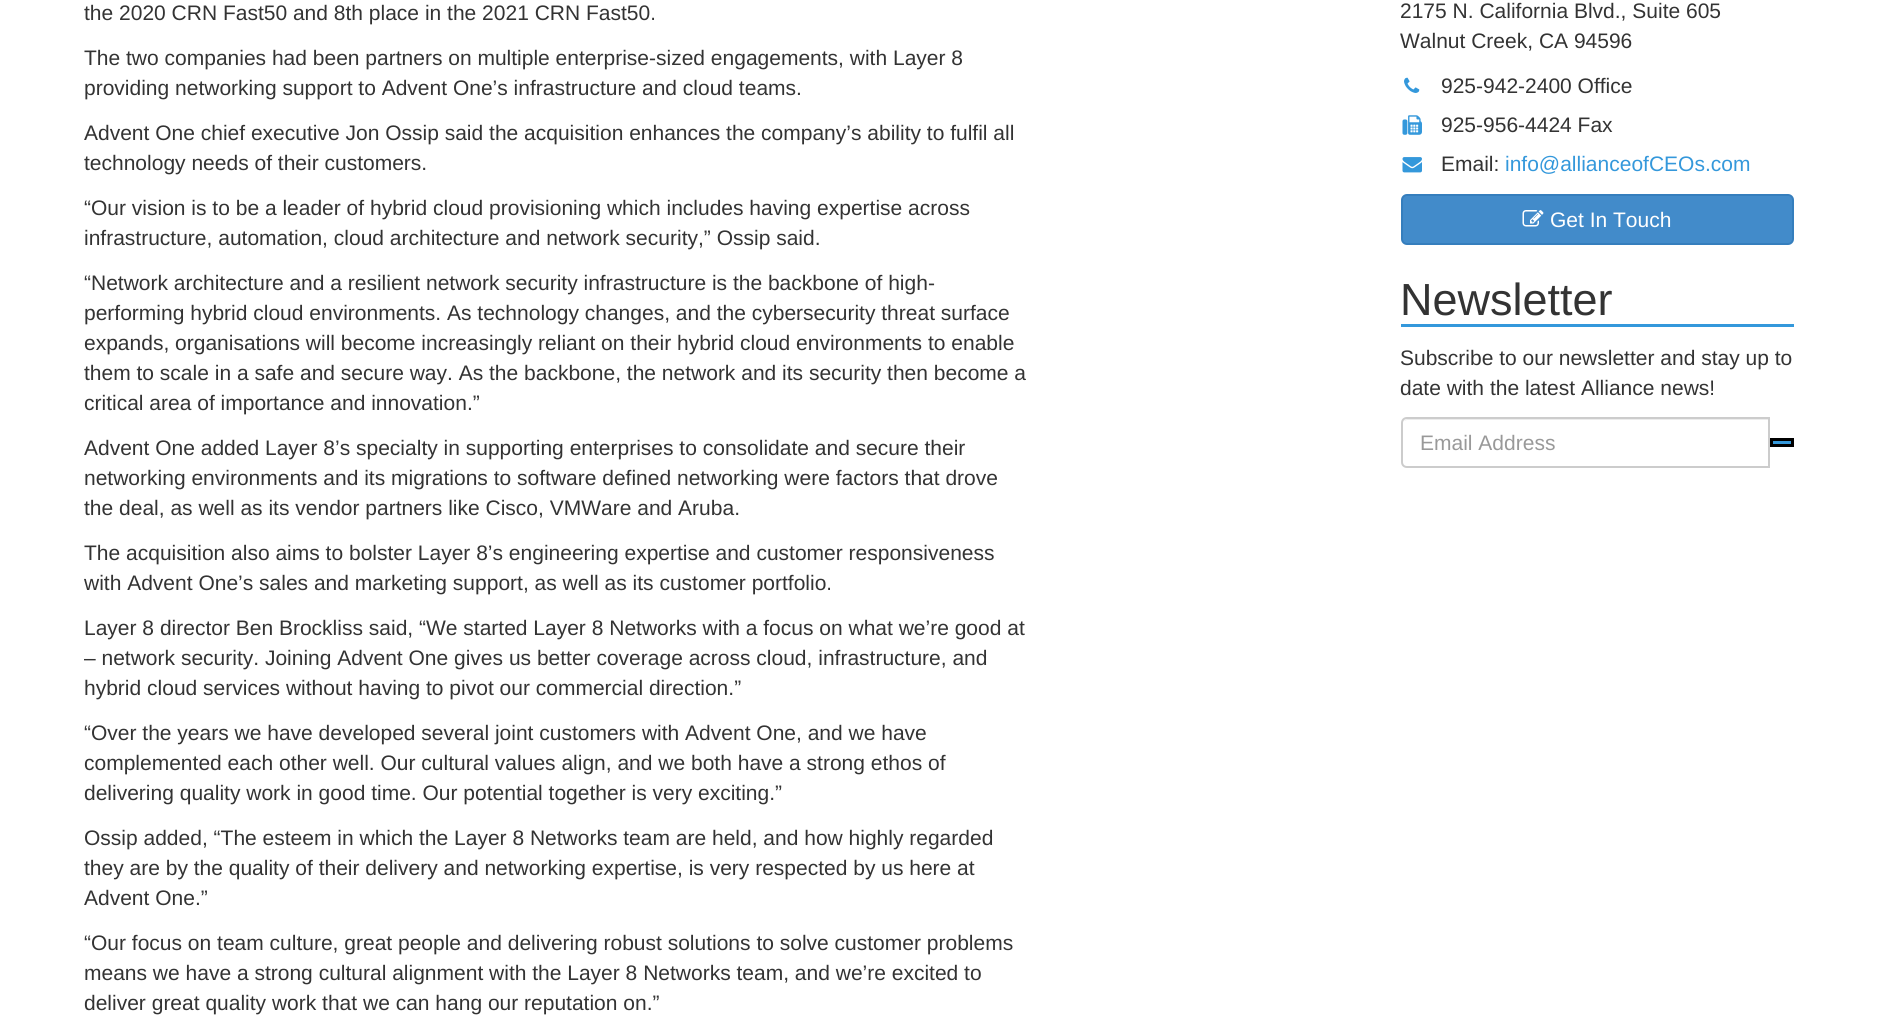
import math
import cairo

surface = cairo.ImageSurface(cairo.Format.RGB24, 1877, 1021)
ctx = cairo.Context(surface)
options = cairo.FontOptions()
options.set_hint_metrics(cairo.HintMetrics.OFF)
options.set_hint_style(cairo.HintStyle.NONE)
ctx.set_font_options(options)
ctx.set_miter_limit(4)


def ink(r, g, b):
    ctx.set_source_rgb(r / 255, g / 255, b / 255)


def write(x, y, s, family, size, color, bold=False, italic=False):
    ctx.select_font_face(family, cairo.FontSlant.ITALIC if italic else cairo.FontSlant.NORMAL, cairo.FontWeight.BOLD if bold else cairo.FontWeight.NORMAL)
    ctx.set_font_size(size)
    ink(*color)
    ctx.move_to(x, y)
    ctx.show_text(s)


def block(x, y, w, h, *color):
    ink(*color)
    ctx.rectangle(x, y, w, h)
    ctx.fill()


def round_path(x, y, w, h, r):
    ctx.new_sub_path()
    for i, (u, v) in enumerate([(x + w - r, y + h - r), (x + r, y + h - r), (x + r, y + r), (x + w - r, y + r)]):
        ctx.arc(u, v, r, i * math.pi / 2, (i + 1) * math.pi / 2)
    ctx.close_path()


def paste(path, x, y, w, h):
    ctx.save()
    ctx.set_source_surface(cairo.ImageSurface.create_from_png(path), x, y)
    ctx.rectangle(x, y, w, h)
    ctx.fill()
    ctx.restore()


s1 = dict(family="Liberation Sans", size=21, color=(51, 51, 51))
s2 = dict(family="Liberation Sans", size=21, color=(52, 152, 219))
s3 = dict(family="Liberation Sans", size=21, color=(255, 255, 255))
s4 = dict(family="Liberation Sans", size=45, color=(51, 51, 51))
s5 = dict(family="Liberation Sans", size=21, color=(153, 153, 153))

ink(255, 255, 255)
ctx.paint()
write(84, 20, "the 2020 CRN Fast50 and 8th place in the 2021 CRN Fast50.", **s1)
write(84, 65, "The two companies had been partners on multiple enterprise-sized engagements, with Layer 8", **s1)
write(84, 95, "providing networking support to Advent One’s infrastructure and cloud teams.", **s1)
write(84, 140, "Advent One chief executive Jon Ossip said the acquisition enhances the company’s ability to fulfil all", **s1)
write(84, 170, "technology needs of their customers.", **s1)
write(84, 215, "“Our vision is to be a leader of hybrid cloud provisioning which includes having expertise across", **s1)
write(84, 245, "infrastructure, automation, cloud architecture and network security,” Ossip said.", **s1)
write(84, 290, "“Network architecture and a resilient network security infrastructure is the backbone of high-", **s1)
write(84, 320, "performing hybrid cloud environments. As technology changes, and the cybersecurity threat surface", **s1)
write(84, 350, "expands, organisations will become increasingly reliant on their hybrid cloud environments to enable", **s1)
write(84, 380, "them to scale in a safe and secure way. As the backbone, the network and its security then become a", **s1)
write(84, 410, "critical area of importance and innovation.”", **s1)
write(84, 455, "Advent One added Layer 8’s specialty in supporting enterprises to consolidate and secure their", **s1)
write(84, 485, "networking environments and its migrations to software defined networking were factors that drove", **s1)
write(84, 515, "the deal, as well as its vendor partners like Cisco, VMWare and Aruba.", **s1)
write(84, 560, "The acquisition also aims to bolster Layer 8’s engineering expertise and customer responsiveness", **s1)
write(84, 590, "with Advent One’s sales and marketing support, as well as its customer portfolio.", **s1)
write(84, 635, "Layer 8 director Ben Brockliss said, “We started Layer 8 Networks with a focus on what we’re good at", **s1)
write(84, 665, "– network security. Joining Advent One gives us better coverage across cloud, infrastructure, and", **s1)
write(84, 695, "hybrid cloud services without having to pivot our commercial direction.”", **s1)
write(84, 740, "“Over the years we have developed several joint customers with Advent One, and we have", **s1)
write(84, 770, "complemented each other well. Our cultural values align, and we both have a strong ethos of", **s1)
write(84, 800, "delivering quality work in good time. Our potential together is very exciting.”", **s1)
write(84, 845, "Ossip added, “The esteem in which the Layer 8 Networks team are held, and how highly regarded", **s1)
write(84, 875, "they are by the quality of their delivery and networking expertise, is very respected by us here at", **s1)
write(84, 905, "Advent One.”", **s1)
write(84, 950, "“Our focus on team culture, great people and delivering robust solutions to solve customer problems", **s1)
write(84, 980, "means we have a strong cultural alignment with the Layer 8 Networks team, and we’re excited to", **s1)
write(84, 1010, "deliver great quality work that we can hang our reputation on.”", **s1)
write(1400, 18, "2175 N. California Blvd., Suite 605", **s1)
write(1400, 48, "Walnut Creek, CA 94596", **s1)
paste("pic1.png", 1404, 77, 16, 16)
write(1441, 93, "925-942-2400 Office", **s1)
paste("pic2.png", 1402, 115, 20, 20)
write(1441, 132, "925-956-4424 Fax", **s1)
paste("pic3.png", 1402, 157, 20, 16)
write(1441, 171, "Email:", **s1)
write(1505, 171, "info@allianceofCEOs.com", **s2)
ink(66, 139, 202)
round_path(1402, 195, 391, 49, 5)
ctx.fill_preserve()
ink(53, 126, 189)
ctx.stroke()
paste("pic4.png", 1522, 210, 22, 17)
write(1550, 227, "Get In Touch", **s3)
block(1401, 324, 393, 3, 52, 152, 219)
write(1400, 315, "Newsletter", **s4)
write(1400, 365, "Subscribe to our newsletter and stay up to", **s1)
write(1400, 395, "date with the latest Alliance news!", **s1)
ink(236, 236, 236)
ctx.new_path()
ctx.move_to(1407, 420)
ctx.line_to(1768, 420)
ctx.line_to(1768, 467)
ctx.line_to(1769, 467)
ctx.line_to(1769, 419)
ctx.line_to(1408, 419)
ctx.curve_to(1406, 419, 1405, 420, 1404, 421)
ctx.close_path()
ctx.fill()
ctx.new_path()
ctx.move_to(1407, 418)
ctx.line_to(1769, 418)
ctx.line_to(1769, 467)
ctx.line_to(1407, 467)
ctx.curve_to(1404, 467, 1402, 465, 1402, 462)
ctx.line_to(1402, 423)
ctx.curve_to(1402, 420, 1404, 418, 1407, 418)
ctx.close_path()
ink(204, 204, 204)
ctx.stroke()
write(1420, 450, "Email Address", **s5)
ink(52, 152, 219)
ctx.rectangle(1771.5, 439.5, 21, 6)
ctx.fill_preserve()
ink(0, 0, 0)
ctx.set_line_width(3)
ctx.stroke()
surface.write_to_png("screenshot.png")
